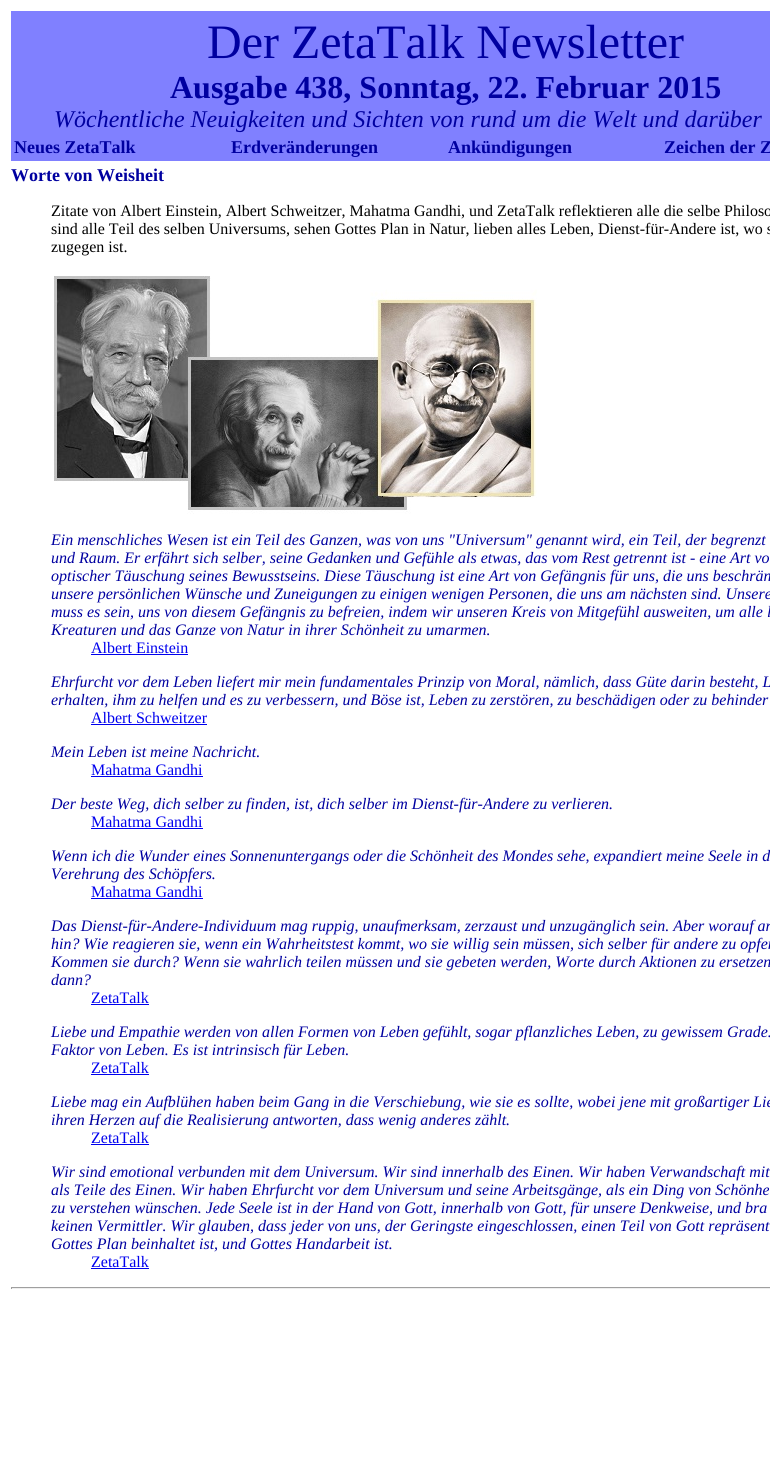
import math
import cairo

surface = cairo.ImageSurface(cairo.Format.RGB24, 770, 1479)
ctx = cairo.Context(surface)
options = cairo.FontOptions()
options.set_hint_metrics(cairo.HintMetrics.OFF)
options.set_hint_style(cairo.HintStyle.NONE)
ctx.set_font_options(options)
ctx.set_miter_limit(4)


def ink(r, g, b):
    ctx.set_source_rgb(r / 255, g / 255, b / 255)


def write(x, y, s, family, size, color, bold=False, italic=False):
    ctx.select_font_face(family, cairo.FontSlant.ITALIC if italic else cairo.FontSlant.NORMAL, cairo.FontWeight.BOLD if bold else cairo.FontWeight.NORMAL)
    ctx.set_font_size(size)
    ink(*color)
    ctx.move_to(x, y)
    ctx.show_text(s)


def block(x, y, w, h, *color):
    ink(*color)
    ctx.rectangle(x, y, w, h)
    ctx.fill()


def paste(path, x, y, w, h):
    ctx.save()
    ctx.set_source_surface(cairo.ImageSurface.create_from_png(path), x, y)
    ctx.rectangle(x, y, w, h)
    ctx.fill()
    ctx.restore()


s1 = dict(family="Liberation Serif", size=48, color=(0, 0, 160))
s2 = dict(family="Liberation Serif", size=32, color=(0, 0, 160), bold=True)
s3 = dict(family="Liberation Serif", size=24, color=(0, 0, 160), italic=True)
s4 = dict(family="Liberation Serif", size=18, color=(0, 0, 160), bold=True)
s5 = dict(family="Liberation Serif", size=16, color=(0, 0, 0))
s6 = dict(family="Liberation Serif", size=16, color=(0, 0, 160), italic=True)
s7 = dict(family="Liberation Serif", size=16, color=(0, 0, 238))

ink(255, 255, 255)
ctx.paint()
block(11, 11, 759, 150, 128, 128, 255)
write(207, 58, "Der ZetaTalk Newsletter", **s1)
write(170, 98, "Ausgabe 438, Sonntag, 22. Februar 2015", **s2)
write(54, 127, "Wöchentliche Neuigkeiten und Sichten von rund um die Welt und darüber", **s3)
write(14, 153, "Neues ZetaTalk", **s4)
write(231, 153, "Erdveränderungen", **s4)
write(448, 153, "Ankündigungen", **s4)
write(664, 153, "Zeichen der Z", **s4)
write(11, 181, "Worte von Weisheit", **s4)
write(51, 216, "Zitate von Albert Einstein, Albert Schweitzer, Mahatma Gandhi, und ZetaTalk reflektieren alle die selbe Philoso", **s5)
write(51, 234, "sind alle Teil des selben Universums, sehen Gottes Plan in Natur, lieben alles Leben, Dienst-für-Andere ist, wo s", **s5)
write(51, 252, "zugegen ist.", **s5)
paste("pic1.png", 53, 276, 484, 238)
write(51, 545, "Ein menschliches Wesen ist ein Teil des Ganzen, was von uns \"Universum\" genannt wird, ein Teil, der begrenzt", **s6)
write(51, 563, "und Raum. Er erfährt sich selber, seine Gedanken und Gefühle als etwas, das vom Rest getrennt ist - eine Art vo", **s6)
write(51, 581, "optischer Täuschung seines Bewusstseins. Diese Täuschung ist eine Art von Gefängnis für uns, die uns beschrän", **s6)
write(51, 599, "unsere persönlichen Wünsche und Zuneigungen zu einigen wenigen Personen, die uns am nächsten sind. Unsere", **s6)
write(51, 617, "muss es sein, uns von diesem Gefängnis zu befreien, indem wir unseren Kreis von Mitgefühl ausweiten, um alle l", **s6)
write(51, 635, "Kreaturen und das Ganze von Natur in ihrer Schönheit zu umarmen.", **s6)
write(91, 653, "Albert Einstein", **s7)
block(91, 654, 97, 1, 0, 0, 238)
write(51, 687, "Ehrfurcht vor dem Leben liefert mir mein fundamentales Prinzip von Moral, nämlich, dass Güte darin besteht, L", **s6)
write(51, 705, "erhalten, ihm zu helfen und es zu verbessern, und Böse ist, Leben zu zerstören, zu beschädigen oder zu behinder", **s6)
write(91, 723, "Albert Schweitzer", **s7)
block(91, 724, 116, 1, 0, 0, 238)
write(51, 757, "Mein Leben ist meine Nachricht.", **s6)
write(91, 775, "Mahatma Gandhi", **s7)
block(91, 776, 112, 1, 0, 0, 238)
write(51, 809, "Der beste Weg, dich selber zu finden, ist, dich selber im Dienst-für-Andere zu verlieren.", **s6)
write(91, 827, "Mahatma Gandhi", **s7)
block(91, 828, 112, 1, 0, 0, 238)
write(51, 861, "Wenn ich die Wunder eines Sonnenuntergangs oder die Schönheit des Mondes sehe, expandiert meine Seele in d", **s6)
write(51, 879, "Verehrung des Schöpfers.", **s6)
write(91, 897, "Mahatma Gandhi", **s7)
block(91, 898, 112, 1, 0, 0, 238)
write(51, 931, "Das Dienst-für-Andere-Individuum mag ruppig, unaufmerksam, zerzaust und unzugänglich sein. Aber worauf ar", **s6)
write(51, 949, "hin? Wie reagieren sie, wenn ein Wahrheitstest kommt, wo sie willig sein müssen, sich selber für andere zu opfer", **s6)
write(51, 967, "Kommen sie durch? Wenn sie wahrlich teilen müssen und sie gebeten werden, Worte durch Aktionen zu ersetzen", **s6)
write(51, 985, "dann?", **s6)
write(91, 1003, "ZetaTalk", **s7)
block(91, 1004, 58, 1, 0, 0, 238)
write(51, 1037, "Liebe und Empathie werden von allen Formen von Leben gefühlt, sogar pflanzliches Leben, zu gewissem Grade.", **s6)
write(51, 1055, "Faktor von Leben. Es ist intrinsisch für Leben.", **s6)
write(91, 1073, "ZetaTalk", **s7)
block(91, 1074, 58, 1, 0, 0, 238)
write(51, 1107, "Liebe mag ein Aufblühen haben beim Gang in die Verschiebung, wie sie es sollte, wobei jene mit großartiger Lie", **s6)
write(51, 1125, "ihren Herzen auf die Realisierung antworten, dass wenig anderes zählt.", **s6)
write(91, 1143, "ZetaTalk", **s7)
block(91, 1144, 58, 1, 0, 0, 238)
write(51, 1177, "Wir sind emotional verbunden mit dem Universum. Wir sind innerhalb des Einen. Wir haben Verwandschaft mit", **s6)
write(51, 1195, "als Teile des Einen. Wir haben Ehrfurcht vor dem Universum und seine Arbeitsgänge, als ein Ding von Schönhe", **s6)
write(51, 1213, "zu verstehen wünschen. Jede Seele ist in der Hand von Gott, innerhalb von Gott, für unsere Denkweise, und bra", **s6)
write(51, 1231, "keinen Vermittler. Wir glauben, dass jeder von uns, der Geringste eingeschlossen, einen Teil von Gott repräsent", **s6)
write(51, 1249, "Gottes Plan beinhaltet ist, und Gottes Handarbeit ist.", **s6)
write(91, 1267, "ZetaTalk", **s7)
block(91, 1268, 58, 1, 0, 0, 238)
block(11, 1287, 759, 1, 159, 159, 159)
block(11, 1288, 759, 1, 238, 238, 238)
block(11, 1287, 1, 2, 159, 159, 159)
surface.write_to_png("screenshot.png")
